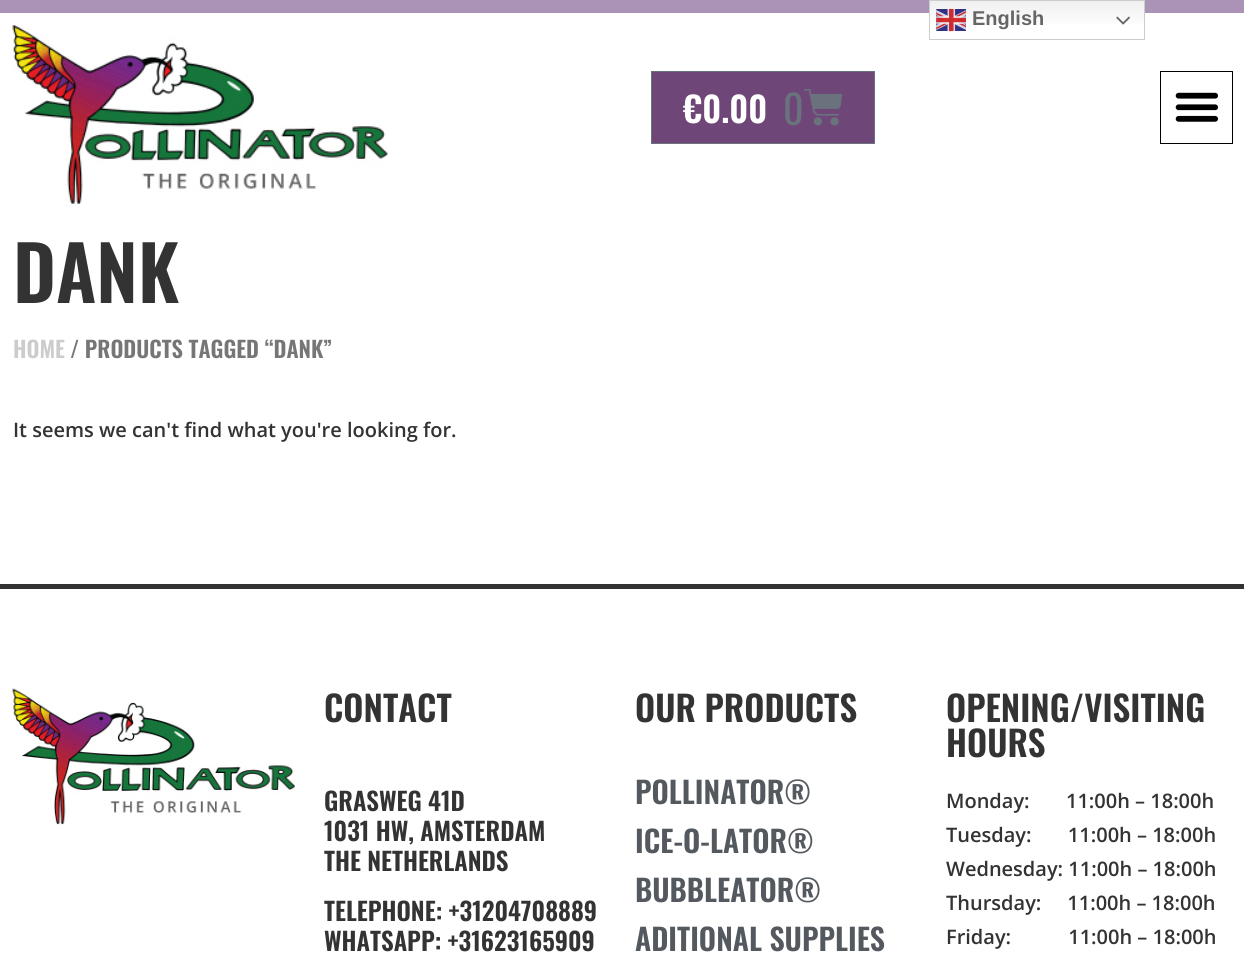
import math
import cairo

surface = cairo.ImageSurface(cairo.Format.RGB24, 1244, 959)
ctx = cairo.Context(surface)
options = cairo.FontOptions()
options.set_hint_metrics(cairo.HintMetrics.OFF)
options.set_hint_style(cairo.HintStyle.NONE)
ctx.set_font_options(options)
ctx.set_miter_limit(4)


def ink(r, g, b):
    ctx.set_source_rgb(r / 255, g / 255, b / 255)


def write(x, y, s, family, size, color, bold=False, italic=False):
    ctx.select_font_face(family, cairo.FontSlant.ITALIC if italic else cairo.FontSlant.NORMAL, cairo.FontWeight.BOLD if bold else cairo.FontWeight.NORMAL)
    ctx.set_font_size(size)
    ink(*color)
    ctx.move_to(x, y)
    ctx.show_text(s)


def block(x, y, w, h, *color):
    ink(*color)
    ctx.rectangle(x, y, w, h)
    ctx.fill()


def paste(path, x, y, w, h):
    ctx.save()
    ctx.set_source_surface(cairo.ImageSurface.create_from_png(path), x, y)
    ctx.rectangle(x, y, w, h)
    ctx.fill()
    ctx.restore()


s1 = dict(family="Liberation Sans", size=20, color=(102, 102, 102), bold=True)
s2 = dict(family="Oswald SemiBold", size=35, color=(255, 255, 255))
s3 = dict(family="Oswald", size=40, color=(105, 114, 125))
s4 = dict(family="Oswald SemiBold", size=75, color=(51, 51, 51))
s5 = dict(family="Oswald SemiBold", size=22.5, color=(204, 204, 204))
s6 = dict(family="Oswald SemiBold", size=22.5, color=(118, 118, 118))
s7 = dict(family="Open Sans SemiBold", size=20, color=(51, 51, 51))
s8 = dict(family="Oswald SemiBold", size=35, color=(51, 51, 51))
s9 = dict(family="Oswald SemiBold", size=25, color=(51, 51, 51))
s10 = dict(family="Oswald SemiBold", size=30, color=(84, 89, 95))

ink(255, 255, 255)
ctx.paint()
block(0, 0, 1244, 13, 171, 147, 183)
gradient = cairo.LinearGradient(1037, 0, 1037, 40)
gradient.add_color_stop_rgba(0, 0.937, 0.937, 0.937, 1)
gradient.add_color_stop_rgba(0.7, 1, 1, 1, 1)
ctx.set_source(gradient)
ctx.rectangle(930, 1, 214, 23)
ctx.fill()
ctx.rectangle(929.5, 0.5, 215, 39)
ink(204, 204, 204)
ctx.set_line_width(1)
ctx.stroke()
paste("pic1.png", 936, 8, 30, 24)
write(972, 25, "English", **s1)
paste("pic2.png", 1116, 16, 14, 9)
paste("pic3.png", 12, 25, 376, 179)
ink(111, 70, 120)
ctx.rectangle(651.5, 71.5, 223, 72)
ctx.fill_preserve()
ink(105, 114, 125)
ctx.stroke()
write(683, 123, "€0.00", **s2)
write(783, 125, "0", **s3)
paste("pic4.png", 803, 89, 39, 37)
ctx.rectangle(1160.5, 71.5, 72, 72)
ink(0, 0, 0)
ctx.stroke()
paste("pic5.png", 1175, 92, 43, 30)
write(13, 303, "DANK", **s4)
write(13, 358, "HOME", **s5)
write(70, 358, "/ PRODUCTS TAGGED “DANK”", **s6)
write(13, 437, "It seems we can't find what you're looking for.", **s7)
block(0, 584, 1244, 5, 51, 51, 51)
paste("pic6.png", 12, 688, 283, 137)
write(324, 722, "CONTACT", **s8)
write(324, 811, "GRASWEG 41D", **s9)
write(324, 841, "1031 HW, AMSTERDAM", **s9)
write(324, 871, "THE NETHERLANDS", **s9)
write(324, 921, "TELEPHONE: +31204708889", **s9)
write(324, 951, "WHATSAPP: +31623165909", **s9)
write(635, 722, "OUR PRODUCTS", **s8)
write(635, 804, "POLLINATOR®", **s10)
write(635, 853, "ICE-O-LATOR®", **s10)
write(635, 902, "BUBBLEATOR®", **s10)
write(635, 951, "ADITIONAL SUPPLIES", **s10)
write(946, 722, "OPENING/VISITING", **s8)
write(946, 757, "HOURS", **s8)
write(946, 808, "Monday:       11:00h – 18:00h", **s7)
write(946, 842, "Tuesday:       11:00h – 18:00h", **s7)
write(946, 876, "Wednesday: 11:00h – 18:00h", **s7)
write(946, 910, "Thursday:     11:00h – 18:00h", **s7)
write(946, 944, "Friday:           11:00h – 18:00h", **s7)
surface.write_to_png("screenshot.png")
